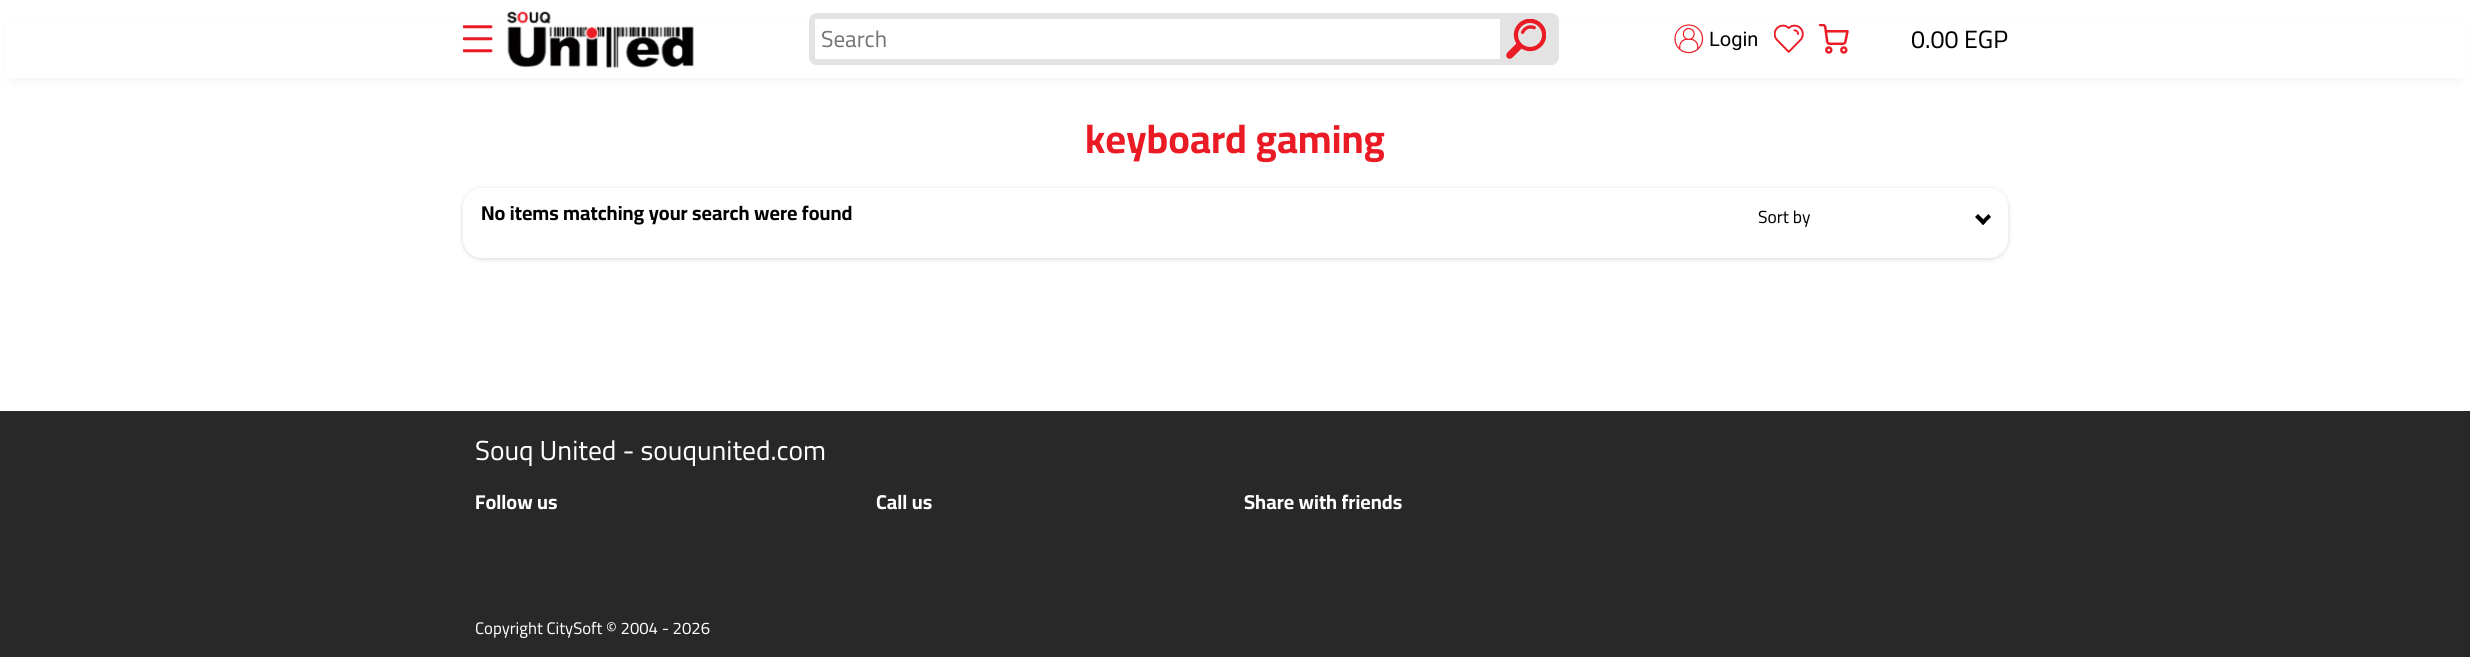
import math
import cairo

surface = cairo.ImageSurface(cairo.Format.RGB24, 2470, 657)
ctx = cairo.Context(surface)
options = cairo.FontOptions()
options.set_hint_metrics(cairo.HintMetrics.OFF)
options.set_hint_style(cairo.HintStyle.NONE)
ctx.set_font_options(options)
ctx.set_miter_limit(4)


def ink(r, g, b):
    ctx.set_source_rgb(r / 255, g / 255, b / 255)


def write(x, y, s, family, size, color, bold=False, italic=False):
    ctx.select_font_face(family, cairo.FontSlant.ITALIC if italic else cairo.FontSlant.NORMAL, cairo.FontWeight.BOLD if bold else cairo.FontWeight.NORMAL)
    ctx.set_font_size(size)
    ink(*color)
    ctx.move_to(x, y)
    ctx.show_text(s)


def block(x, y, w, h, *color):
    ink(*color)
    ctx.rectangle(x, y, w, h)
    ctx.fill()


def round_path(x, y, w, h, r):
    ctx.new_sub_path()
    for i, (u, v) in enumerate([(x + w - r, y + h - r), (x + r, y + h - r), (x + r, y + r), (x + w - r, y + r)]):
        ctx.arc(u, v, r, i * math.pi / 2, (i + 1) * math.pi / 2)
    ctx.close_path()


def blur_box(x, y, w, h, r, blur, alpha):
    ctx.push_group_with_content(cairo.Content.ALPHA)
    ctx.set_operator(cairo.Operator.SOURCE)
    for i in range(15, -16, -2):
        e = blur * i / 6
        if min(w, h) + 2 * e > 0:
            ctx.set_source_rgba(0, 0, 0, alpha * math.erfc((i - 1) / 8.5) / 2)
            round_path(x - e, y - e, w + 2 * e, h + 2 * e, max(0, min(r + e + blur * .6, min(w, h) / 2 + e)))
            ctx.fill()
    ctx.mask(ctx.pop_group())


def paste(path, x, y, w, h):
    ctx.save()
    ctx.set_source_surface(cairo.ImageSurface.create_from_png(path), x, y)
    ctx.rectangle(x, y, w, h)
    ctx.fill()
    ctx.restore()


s1 = dict(family="Cairo", size=23, color=(117, 117, 117))
s2 = dict(family="Roboto", size=20, color=(0, 0, 0))
s3 = dict(family="Cairo", size=25, color=(0, 0, 0))
s4 = dict(family="Cairo", size=40, color=(234, 27, 37), bold=True)
s5 = dict(family="Cairo", size=20, color=(0, 0, 0), bold=True)
s6 = dict(family="Cairo", size=17.5, color=(0, 0, 0))
s7 = dict(family="Cairo", size=27.5, color=(255, 255, 255))
s8 = dict(family="Cairo", size=20, color=(255, 255, 255), bold=True)
s9 = dict(family="Cairo", size=16.7, color=(255, 255, 255))

ink(255, 255, 255)
ctx.paint()
ink(33, 35, 38)
blur_box(13, 25, 2445, 53, 0, 6, 0.1)
block(6, 18, 2459, 60, 255, 255, 255)
paste("pic1.png", 463, 25, 30, 28)
paste("pic2.png", 507, 11, 187, 57)
round_path(812, 16, 744, 46, 5)
ink(227, 227, 227)
ctx.set_line_width(6)
ctx.stroke()
ink(255, 255, 255)
ctx.new_path()
ctx.move_to(816, 19)
ctx.line_to(1500, 19)
ctx.line_to(1500, 59)
ctx.line_to(816, 59)
ctx.curve_to(815.5, 59, 815, 58.5, 815, 58)
ctx.line_to(815, 20)
ctx.curve_to(815, 19.5, 815.5, 19, 816, 19)
ctx.close_path()
ctx.fill()
write(821, 47, "Search", **s1)
ink(227, 227, 227)
ctx.new_path()
ctx.move_to(1500, 19)
ctx.line_to(1552, 19)
ctx.curve_to(1552.5, 19, 1553, 19.5, 1553, 20)
ctx.line_to(1553, 58)
ctx.curve_to(1553, 58.5, 1552.5, 59, 1552, 59)
ctx.line_to(1500, 59)
ctx.close_path()
ctx.fill()
paste("pic3.png", 1506, 19, 40, 40)
paste("pic4.png", 1674, 24, 30, 30)
write(1709, 46, "Login", **s2)
paste("pic5.png", 1774, 24, 30, 29)
paste("pic6.png", 1819, 24, 30, 30)
write(1911, 48, "0.00 EGP", **s3)
write(1085, 153, "keyboard gaming", **s4)
ink(0, 0, 0)
blur_box(463, 189, 1545, 70, 19, 2.5, 0.16)
ink(255, 255, 255)
round_path(463, 188, 1545, 70, 19)
ctx.fill()
write(481, 220, "No items matching your search were found", **s5)
write(1758, 223, "Sort by", **s6)
ctx.new_path()
ctx.move_to(1988.5, 214)
ctx.line_to(1991, 217)
ctx.line_to(1983, 225)
ctx.line_to(1980.5, 222)
ctx.close_path()
ctx.fill()
ctx.new_path()
ctx.move_to(1978, 214)
ctx.line_to(1986, 222)
ctx.line_to(1983, 225)
ctx.line_to(1975, 217)
ctx.close_path()
ctx.fill()
block(0, 411, 2470, 246, 40, 40, 40)
write(475, 460, "Souq United - souqunited.com", **s7)
write(475, 509, "Follow us", **s8)
write(876, 509, "Call us", **s8)
write(1244, 509, "Share with friends", **s8)
write(475, 634, "Copyright CitySoft © 2004 - 2026", **s9)
surface.write_to_png("screenshot.png")
